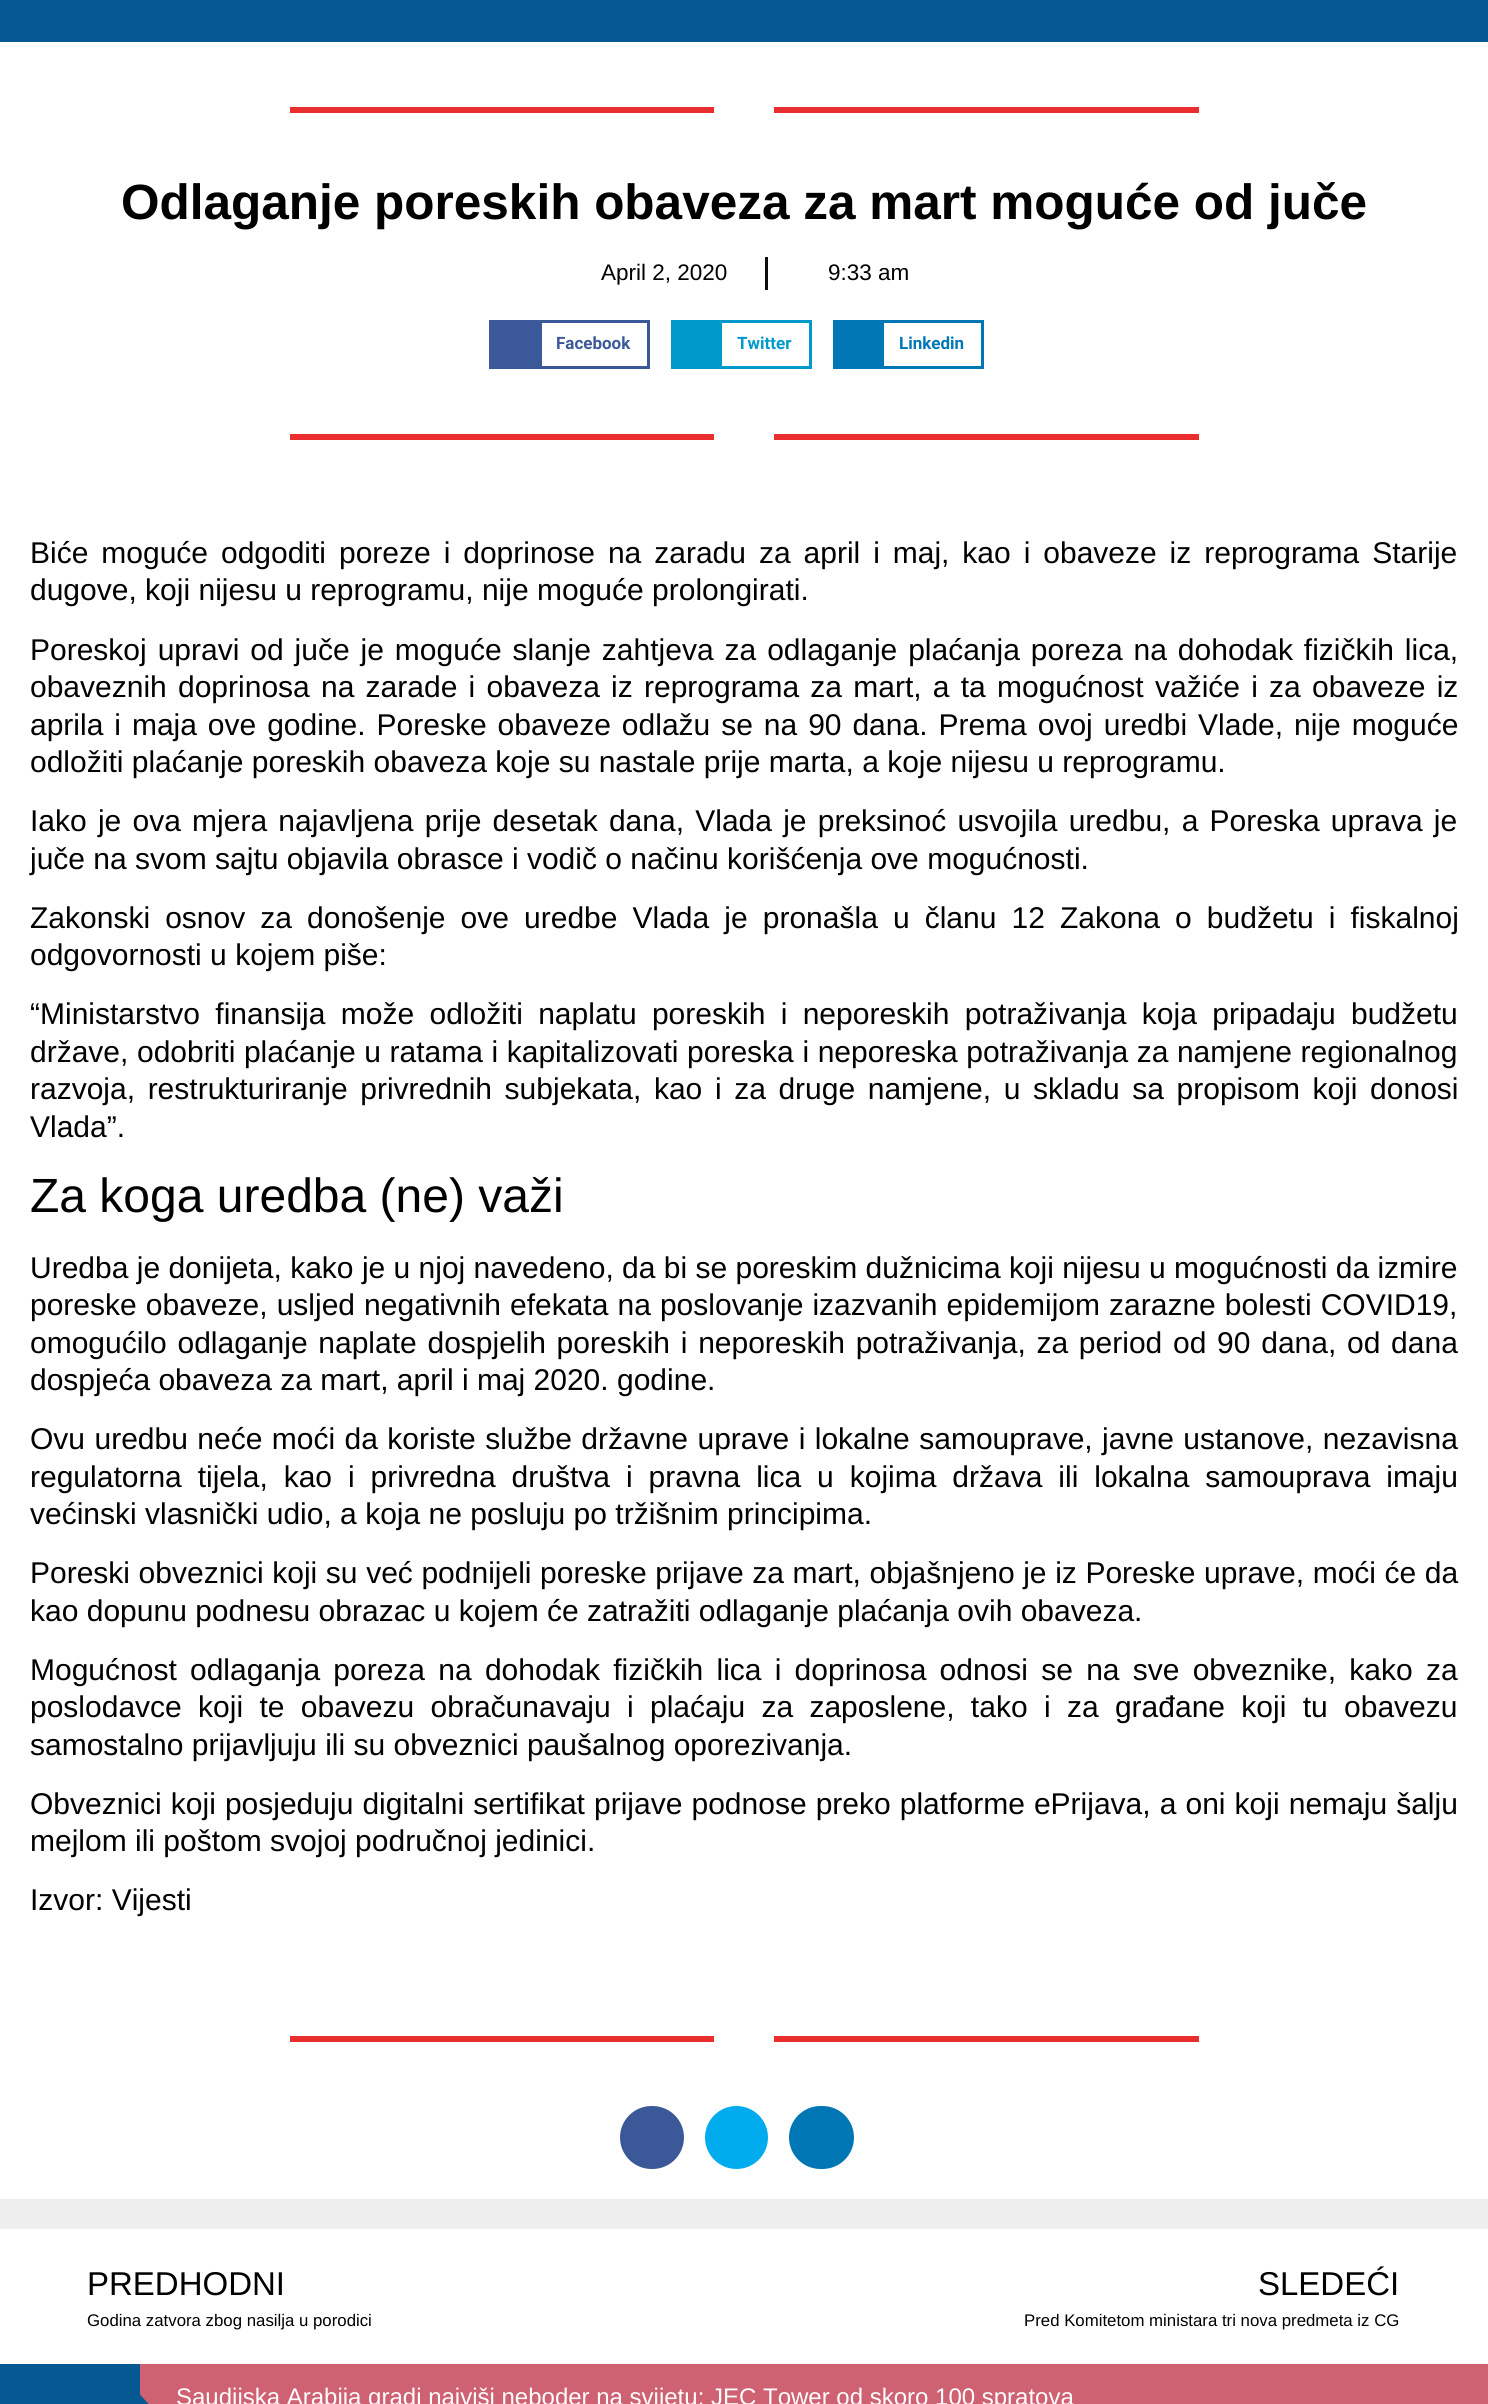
import math
import cairo

surface = cairo.ImageSurface(cairo.Format.RGB24, 1488, 2404)
ctx = cairo.Context(surface)
options = cairo.FontOptions()
options.set_hint_metrics(cairo.HintMetrics.OFF)
options.set_hint_style(cairo.HintStyle.NONE)
ctx.set_font_options(options)
ctx.set_miter_limit(4)


def ink(r, g, b):
    ctx.set_source_rgb(r / 255, g / 255, b / 255)


def write(x, y, s, family, size, color, bold=False, italic=False):
    ctx.select_font_face(family, cairo.FontSlant.ITALIC if italic else cairo.FontSlant.NORMAL, cairo.FontWeight.BOLD if bold else cairo.FontWeight.NORMAL)
    ctx.set_font_size(size)
    ink(*color)
    ctx.move_to(x, y)
    ctx.show_text(s)


def write_spaced(x, y, s, letter, word):
    ctx.move_to(x, y)
    for ch in s:
        ctx.show_text(ch)
        ctx.rel_move_to(letter + word * (ch == ' '), 0)


def block(x, y, w, h, *color):
    ink(*color)
    ctx.rectangle(x, y, w, h)
    ctx.fill()


def round_path(x, y, w, h, r):
    ctx.new_sub_path()
    for i, (u, v) in enumerate([(x + w - r, y + h - r), (x + r, y + h - r), (x + r, y + r), (x + w - r, y + r)]):
        ctx.arc(u, v, r, i * math.pi / 2, (i + 1) * math.pi / 2)
    ctx.close_path()


s1 = dict(family="Liberation Sans", size=49.5, color=(0, 0, 0), bold=True)
s2 = dict(family="Liberation Sans", size=22.5, color=(0, 0, 0))
s3 = dict(family="Roboto", size=17, color=(59, 89, 152), bold=True)
s4 = dict(family="Roboto", size=17, color=(0, 153, 204), bold=True)
s5 = dict(family="Roboto", size=17, color=(0, 119, 181), bold=True)
s6 = dict(family="Liberation Sans", size=30, color=(0, 0, 0))
s7 = dict(family="Liberation Sans", size=48, color=(0, 0, 0))
s8 = dict(family="Liberation Sans", size=33, color=(0, 0, 0))
s9 = dict(family="Liberation Sans", size=16.8, color=(0, 0, 0))
s10 = dict(family="Liberation Sans", size=24, color=(255, 255, 255))

ink(255, 255, 255)
ctx.paint()
block(0, 0, 1488, 42, 5, 88, 145)
block(290, 107, 424, 6, 234, 45, 45)
block(774, 107, 425, 6, 234, 45, 45)
write(121, 219, "Odlaganje poreskih obaveza za mart moguće od juče", **s1)
write(601, 280, "April 2, 2020", **s2)
block(765, 257, 3, 33, 14, 14, 14)
write(828, 280, "9:33 am", **s2)
ctx.rectangle(490.5, 321.5, 158, 46)
ink(59, 89, 152)
ctx.set_line_width(3)
ctx.stroke()
block(492, 323, 50, 43, 59, 89, 152)
write(556, 349, "Facebook", **s3)
ctx.rectangle(672.5, 321.5, 138, 46)
ink(0, 153, 204)
ctx.stroke()
block(674, 323, 48, 43, 0, 153, 204)
write(737, 349, "Twitter", **s4)
ctx.rectangle(834.5, 321.5, 148, 46)
ink(0, 119, 181)
ctx.stroke()
block(836, 323, 48, 43, 0, 119, 181)
write(899, 349, "Linkedin", **s5)
block(290, 434, 424, 6, 234, 45, 45)
block(774, 434, 425, 6, 234, 45, 45)
ctx.select_font_face("Liberation Sans")
ctx.set_font_size(30)
ink(0, 0, 0)
write_spaced(30, 563, "Biće moguće odgoditi poreze i doprinose na zaradu za april i maj, kao i obaveze iz reprograma Starije", 0, 4.6)
write(30, 600, "dugove, koji nijesu u reprogramu, nije moguće prolongirati.", **s6)
write_spaced(30, 660, "Poreskoj upravi od juče je moguće slanje zahtjeva za odlaganje plaćanja poreza na dohodak fizičkih lica,", 0, 2.6)
write_spaced(30, 697, "obaveznih doprinosa na zarade i obaveza iz reprograma za mart, a ta mogućnost važiće i za obaveze iz", 0, 2.9)
write_spaced(30, 735, "aprila i maja ove godine. Poreske obaveze odlažu se na 90 dana. Prema ovoj uredbi Vlade, nije moguće", 0, 2.6)
write(30, 772, "odložiti plaćanje poreskih obaveza koje su nastale prije marta, a koje nijesu u reprogramu.", **s6)
write_spaced(30, 831, "Iako je ova mjera najavljena prije desetak dana, Vlada je preksinoć usvojila uredbu, a Poreska uprava je", 0, 2.9)
write(30, 869, "juče na svom sajtu objavila obrasce i vodič o načinu korišćenja ove mogućnosti.", **s6)
write_spaced(30, 928, "Zakonski osnov za donošenje ove uredbe Vlada je pronašla u članu 12 Zakona o budžetu i fiskalnoj", 0, 6.75)
write(30, 965, "odgovornosti u kojem piše:", **s6)
write_spaced(30, 1024, "“Ministarstvo finansija može odložiti naplatu poreskih i neporeskih potraživanja koja pripadaju budžetu", 0, 7)
write_spaced(30, 1062, "države, odobriti plaćanje u ratama i kapitalizovati poreska i neporeska potraživanja za namjene regionalnog", 0, 0.25)
write_spaced(30, 1099, "razvoja, restrukturiranje privrednih subjekata, kao i za druge namjene, u skladu sa propisom koji donosi", 0, 4.25)
write(30, 1137, "Vlada”.", **s6)
write(30, 1212, "Za koga uredba (ne) važi", **s7)
write(30, 1278, "Uredba je donijeta, kako je u njoj navedeno, da bi se poreskim dužnicima koji nijesu u mogućnosti da izmire", **s6)
write_spaced(30, 1315, "poreske obaveze, usljed negativnih efekata na poslovanje izazvanih epidemijom zarazne bolesti COVID19,", 0, 0.75)
write_spaced(30, 1353, "omogućilo odlaganje naplate dospjelih poreskih i neporeskih potraživanja, za period od 90 dana, od dana", 0, 2.4)
write(30, 1390, "dospjeća obaveza za mart, april i maj 2020. godine.", **s6)
write_spaced(30, 1449, "Ovu uredbu neće moći da koriste službe državne uprave i lokalne samouprave, javne ustanove, nezavisna", 0, 1.1)
write_spaced(30, 1487, "regulatorna tijela, kao i privredna društva i pravna lica u kojima država ili lokalna samouprava imaju", 0, 7.6)
write(30, 1524, "većinski vlasnički udio, a koja ne posluju po tržišnim principima.", **s6)
write_spaced(30, 1583, "Poreski obveznici koji su već podnijeli poreske prijave za mart, objašnjeno je iz Poreske uprave, moći će da", 0, 0.25)
write(30, 1621, "kao dopunu podnesu obrazac u kojem će zatražiti odlaganje plaćanja ovih obaveza.", **s6)
write_spaced(30, 1680, "Mogućnost odlaganja poreza na dohodak fizičkih lica i doprinosa odnosi se na sve obveznike, kako za", 0, 4.9)
write_spaced(30, 1717, "poslodavce koji te obavezu obračunavaju i plaćaju za zaposlene, tako i za građane koji tu obavezu", 0, 8)
write(30, 1755, "samostalno prijavljuju ili su obveznici paušalnog oporezivanja.", **s6)
write_spaced(30, 1814, "Obveznici koji posjeduju digitalni sertifikat prijave podnose preko platforme ePrijava, a oni koji nemaju šalju", 0, 0.75)
write(30, 1851, "mejlom ili poštom svojoj područnoj jedinici.", **s6)
write(30, 1910, "Izvor: Vijesti", **s6)
block(290, 2036, 424, 6, 234, 45, 45)
block(774, 2036, 425, 6, 234, 45, 45)
ink(59, 89, 152)
round_path(620, 2106, 64, 63, 31.5)
ctx.fill()
ink(0, 172, 238)
ctx.arc(736.5, 2137.5, 31.5, 0, 2 * math.pi)
ctx.fill()
ink(0, 119, 181)
round_path(789, 2106, 65, 63, 31.5)
ctx.fill()
block(0, 2199, 1488, 30, 238, 238, 238)
write(87, 2295, "PREDHODNI", **s8)
write(87, 2326, "Godina zatvora zbog nasilja u porodici", **s9)
write(1258, 2295, "SLEDEĆI", **s8)
write(1024, 2326, "Pred Komitetom ministara tri nova predmeta iz CG", **s9)
block(0, 2364, 140, 40, 5, 88, 145)
block(140, 2364, 1348, 40, 206, 97, 114)
ink(5, 88, 145)
ctx.new_path()
ctx.move_to(139.5, 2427)
ctx.line_to(139.5, 2394)
ctx.line_to(154.5, 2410.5)
ctx.close_path()
ctx.fill()
write(176, 2405, "Saudijska Arabija gradi najviši neboder na svijetu: JEC Tower od skoro 100 spratova", **s10)
surface.write_to_png("screenshot.png")
